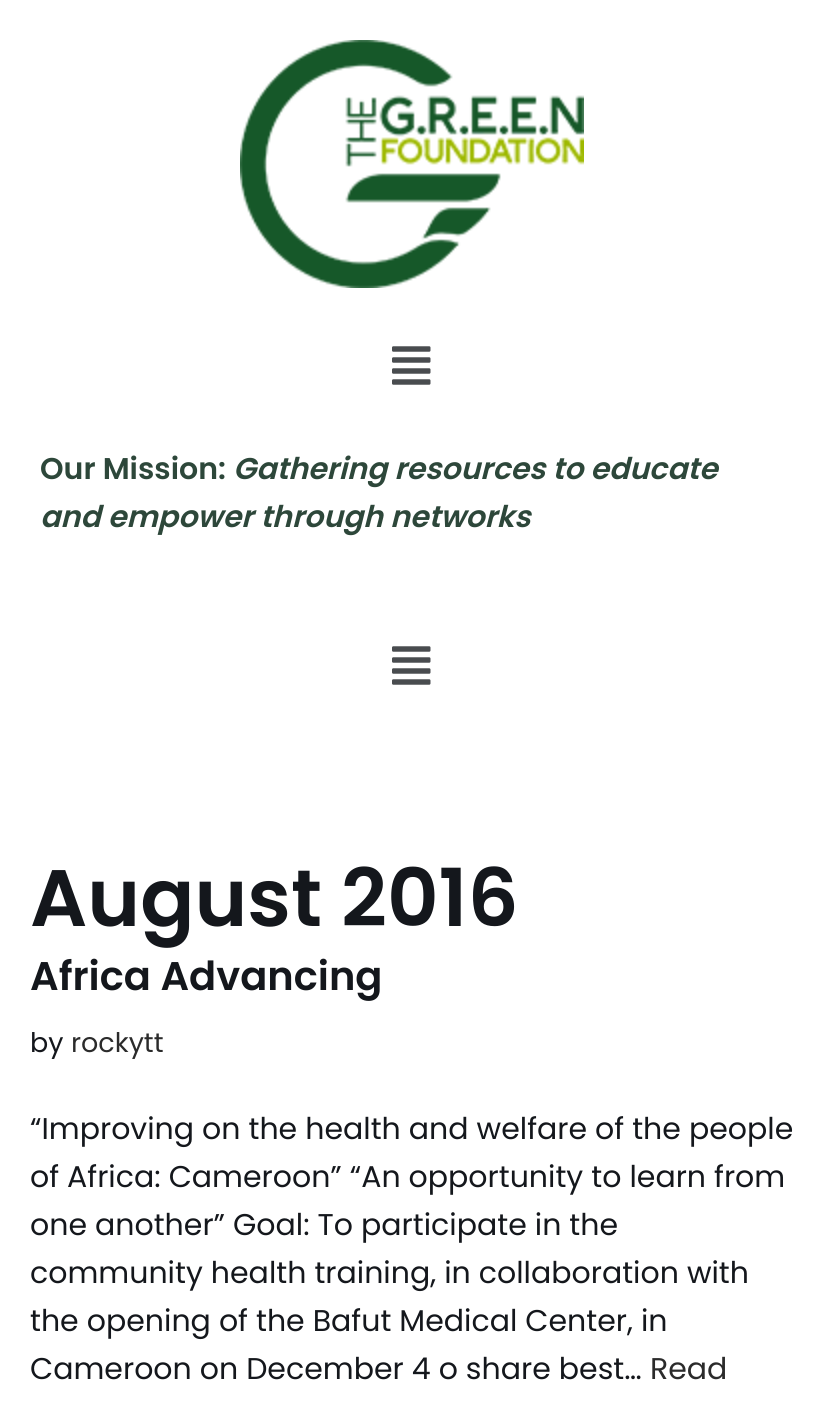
import math
import cairo

surface = cairo.ImageSurface(cairo.Format.RGB24, 824, 1414)
ctx = cairo.Context(surface)
options = cairo.FontOptions()
options.set_hint_metrics(cairo.HintMetrics.OFF)
options.set_hint_style(cairo.HintStyle.NONE)
ctx.set_font_options(options)
ctx.set_miter_limit(4)


def ink(r, g, b):
    ctx.set_source_rgb(r / 255, g / 255, b / 255)


def write(x, y, s, family, size, color, bold=False, italic=False):
    ctx.select_font_face(family, cairo.FontSlant.ITALIC if italic else cairo.FontSlant.NORMAL, cairo.FontWeight.BOLD if bold else cairo.FontWeight.NORMAL)
    ctx.set_font_size(size)
    ink(*color)
    ctx.move_to(x, y)
    ctx.show_text(s)


def paste(path, x, y, w, h):
    ctx.save()
    ctx.set_source_surface(cairo.ImageSurface.create_from_png(path), x, y)
    ctx.rectangle(x, y, w, h)
    ctx.fill()
    ctx.restore()


s1 = dict(family="Poppins SemiBold", size=30, color=(45, 71, 58))
s2 = dict(family="Poppins SemiBold", size=30, color=(45, 71, 58), italic=True)
s3 = dict(family="Poppins SemiBold", size=80, color=(20, 23, 28))
s4 = dict(family="Poppins SemiBold", size=40, color=(20, 23, 28))
s5 = dict(family="Poppins", size=27, color=(20, 23, 28))
s6 = dict(family="Poppins", size=27, color=(43, 43, 43))
s7 = dict(family="Poppins", size=30, color=(20, 23, 28))
s8 = dict(family="Poppins", size=30, color=(43, 43, 43))

ink(255, 255, 255)
ctx.paint()
paste("pic1.png", 240, 40, 344, 248)
paste("pic2.png", 392, 346, 39, 39)
write(40, 479, "Our Mission:", **s1)
write(233, 479, "Gathering resources to educate", **s2)
write(40, 527, "and empower through networks", **s2)
paste("pic2.png", 392, 646, 39, 39)
write(30, 926, "August 2016", **s3)
write(30, 990, "Africa Advancing", **s4)
write(30, 1052, "by", **s5)
write(71, 1052, "rockytt", **s6)
write(30, 1139, "“Improving on the health and welfare of the people", **s7)
write(30, 1187, "of Africa: Cameroon” “An opportunity to learn from", **s7)
write(30, 1235, "one another” Goal: To participate in the", **s7)
write(30, 1283, "community health training, in collaboration with", **s7)
write(30, 1331, "the opening of the Bafut Medical Center, in", **s7)
write(30, 1379, "Cameroon on December 4 o share best…", **s7)
write(650, 1379, "Read", **s8)
surface.write_to_png("screenshot.png")
